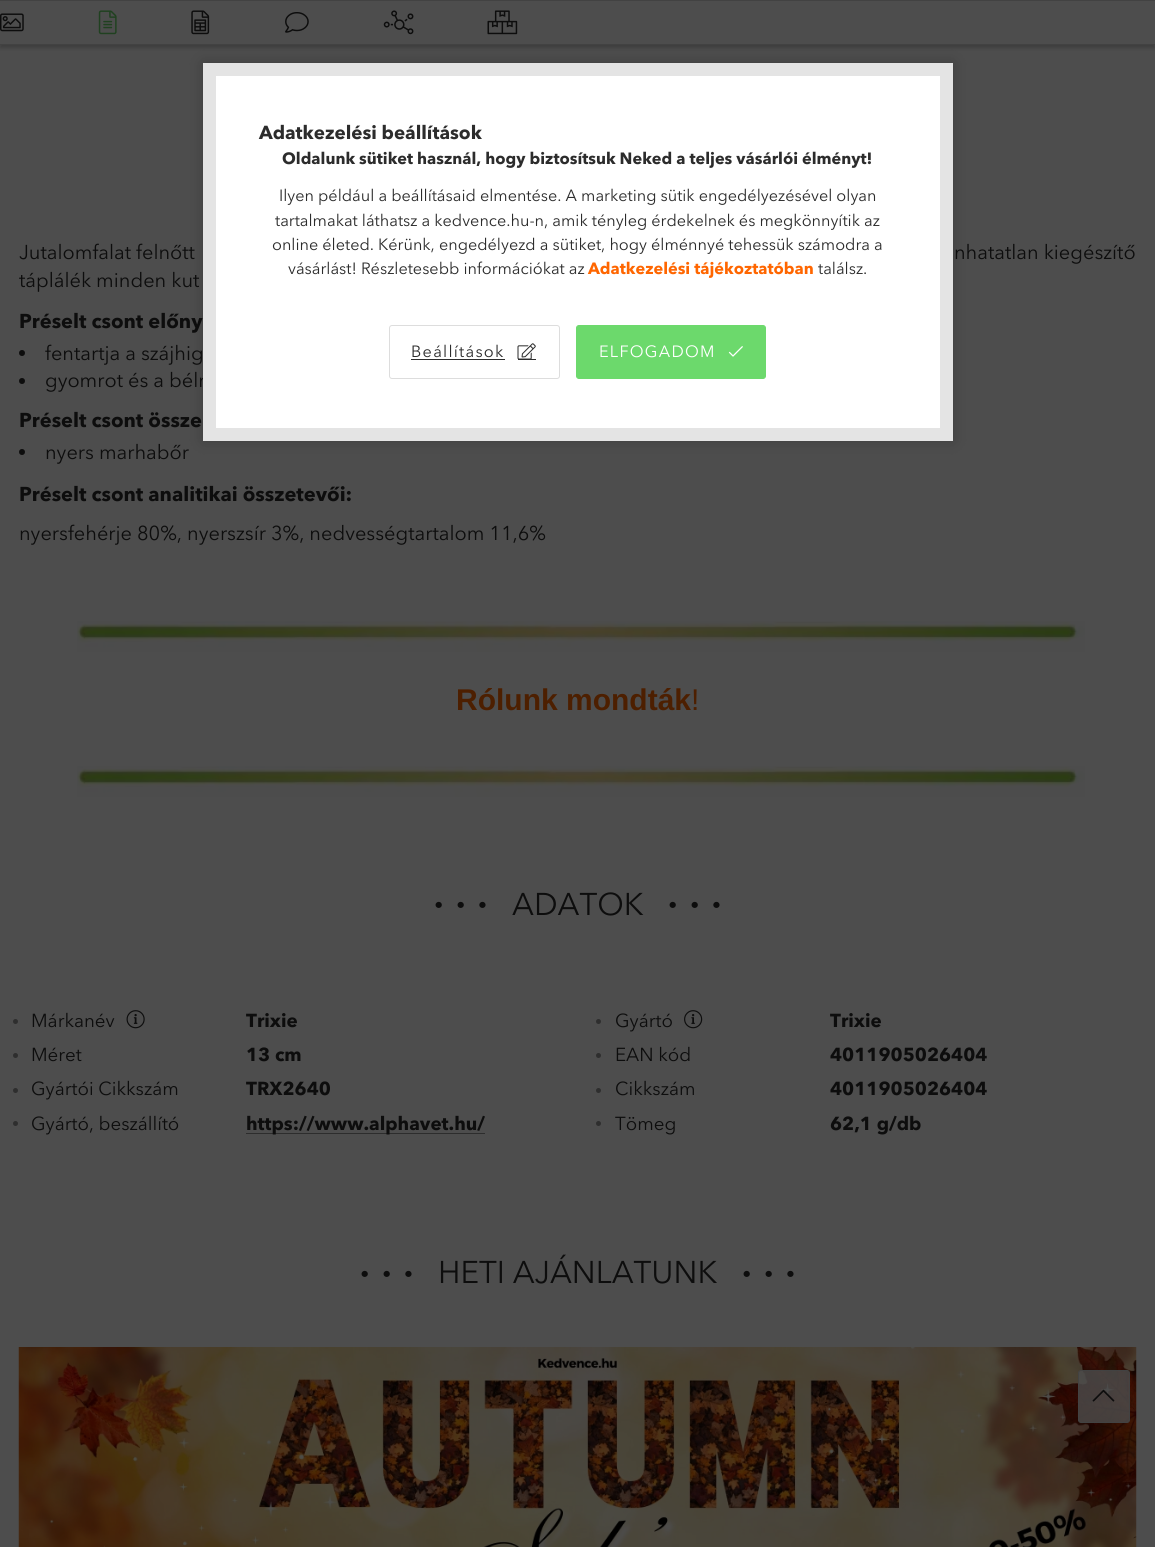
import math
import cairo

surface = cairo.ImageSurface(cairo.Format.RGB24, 1155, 1547)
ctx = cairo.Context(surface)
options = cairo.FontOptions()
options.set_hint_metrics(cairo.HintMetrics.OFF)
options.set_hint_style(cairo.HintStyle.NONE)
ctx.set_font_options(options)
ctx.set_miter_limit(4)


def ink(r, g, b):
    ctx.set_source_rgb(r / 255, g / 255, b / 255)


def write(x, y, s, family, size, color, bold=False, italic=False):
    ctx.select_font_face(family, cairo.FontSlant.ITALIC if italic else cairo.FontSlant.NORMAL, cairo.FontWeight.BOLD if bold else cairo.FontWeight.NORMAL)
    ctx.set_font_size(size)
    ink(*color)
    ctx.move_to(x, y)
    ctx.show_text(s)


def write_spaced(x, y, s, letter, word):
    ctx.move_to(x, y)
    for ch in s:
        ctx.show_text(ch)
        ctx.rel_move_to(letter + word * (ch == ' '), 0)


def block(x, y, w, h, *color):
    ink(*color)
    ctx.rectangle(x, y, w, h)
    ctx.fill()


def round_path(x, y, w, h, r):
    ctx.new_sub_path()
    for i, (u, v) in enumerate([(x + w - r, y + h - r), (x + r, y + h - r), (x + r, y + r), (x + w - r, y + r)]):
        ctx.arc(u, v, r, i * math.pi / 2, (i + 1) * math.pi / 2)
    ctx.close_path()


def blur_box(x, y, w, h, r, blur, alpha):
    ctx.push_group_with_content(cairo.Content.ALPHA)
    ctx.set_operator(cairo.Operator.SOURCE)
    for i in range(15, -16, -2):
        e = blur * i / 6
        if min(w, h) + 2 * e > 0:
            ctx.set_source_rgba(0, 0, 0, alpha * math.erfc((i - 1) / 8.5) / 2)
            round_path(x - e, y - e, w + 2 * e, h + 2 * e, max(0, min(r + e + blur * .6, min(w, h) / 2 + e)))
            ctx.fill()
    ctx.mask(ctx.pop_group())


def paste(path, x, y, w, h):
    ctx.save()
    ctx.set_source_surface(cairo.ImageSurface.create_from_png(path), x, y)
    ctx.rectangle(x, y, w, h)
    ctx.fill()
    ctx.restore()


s1 = dict(family="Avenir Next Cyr", size=20, color=(13, 13, 13))
s2 = dict(family="Avenir Next Cyr", size=18.75, color=(44, 44, 44), bold=True)
s3 = dict(family="Avenir Next Cyr", size=16.25, color=(44, 44, 44), bold=True)
s4 = dict(family="Avenir Next Cyr", size=16.25, color=(44, 44, 44))
s5 = dict(family="Avenir Next Cyr", size=16.25, color=(255, 102, 0), bold=True)
s6 = dict(family="Avenir Next Cyr", size=20, color=(13, 13, 13), bold=True)
s7 = dict(family="Liberation Sans", size=30, color=(77, 31, 0), bold=True)
s8 = dict(family="Liberation Sans", size=30, color=(77, 31, 0))
s9 = dict(family="Avenir Next Cyr", size=31.25, color=(13, 13, 13))
s10 = dict(family="Avenir Next Cyr", size=18.75, color=(13, 13, 13))
s11 = dict(family="Avenir Next Cyr", size=18.75, color=(13, 13, 13), bold=True)

ink(77, 77, 77)
ctx.paint()
ink(0, 0, 0)
blur_box(0, 3, 1155, 45, 0, 2, 0.2)
block(0, 1, 1155, 43, 77, 77, 77)
block(0, 44, 1155, 1, 66, 66, 66)
ink(0, 0, 0)
blur_box(203, 63, 750, 378, 0, 7.5, 0.2)
write(45, 387, "gyomrot és a bélr", **s1)
ink(255, 255, 255)
ctx.rectangle(209.5, 69.5, 737, 365)
ctx.fill_preserve()
ink(228, 228, 228)
ctx.set_line_width(13)
ctx.stroke()
write(259, 139, "Adatkezelési beállítások", **s2)
write(282, 164, "Oldalunk sütiket használ, hogy biztosítsuk Neked a teljes vásárlói élményt!", **s3)
write(279, 201, "Ilyen például a beállításaid elmentése. A marketing sütik engedélyezésével olyan", **s4)
write(275, 226, "tartalmakat láthatsz a kedvence.hu-n, amik tényleg érdekelnek és megkönnyítik az", **s4)
write(272, 250, "online életed. Kérünk, engedélyezd a sütiket, hogy élménnyé tehessük számodra a", **s4)
write(288, 274, "vásárlást! Részletesebb információkat az", **s4)
write(588, 274, "Adatkezelési tájékoztatóban", **s5)
write(818, 274, "találsz.", **s4)
round_path(389.5, 325.5, 170, 53, 2.5)
ink(221, 221, 221)
ctx.set_line_width(1)
ctx.stroke()
ink(44, 44, 44)
write_spaced(411, 357, "Beállítások", 1.25, 0)
block(411, 359, 94, 1, 44, 44, 44)
paste("pic1.png", 517, 343, 19, 16)
block(518, 359, 18, 1, 44, 44, 44)
ink(108, 217, 108)
round_path(576.5, 325.5, 189, 53, 2.5)
ctx.fill_preserve()
ctx.stroke()
ink(255, 255, 255)
write_spaced(599, 357, "ELFOGADOM", 1.25, 0)
paste("pic2.png", 728, 346, 15, 11)
block(0, 0, 1155, 1, 66, 66, 66)
paste("pic3.png", 0, 13, 24, 19)
paste("pic4.png", 98, 10, 19, 25)
paste("pic5.png", 191, 10, 19, 25)
paste("pic6.png", 285, 12, 24, 21)
paste("pic7.png", 383, 10, 31, 25)
paste("pic8.png", 487, 10, 31, 25)
write(19, 259, "Jutalomfalat felnőtt", **s1)
write(954, 259, "nhatatlan kiegészítő", **s1)
write(19, 287, "táplálék minden kut", **s1)
write(19, 328, "Préselt csont előny", **s6)
ctx.new_path()
ctx.arc(22, 353, 3, 0, 2 * math.pi)
ctx.fill()
write(45, 360, "fentartja a szájhig", **s1)
ctx.new_path()
ctx.arc(22, 381, 3, 0, 2 * math.pi)
ctx.fill()
write(19, 427, "Préselt csont össze", **s6)
ctx.new_path()
ctx.arc(22, 452, 3, 0, 2 * math.pi)
ctx.fill()
write(45, 459, "nyers marhabőr", **s1)
write(19, 501, "Préselt csont analitikai összetevői:", **s6)
write(19, 540, "nyersfehérje 80%, nyerszsír 3%, nedvességtartalom 11,6%", **s1)
paste("pic9.png", 77, 621, 1008, 31)
write(456, 710, "Rólunk mondták", **s7)
write(691, 710, "!", **s8)
paste("pic9.png", 77, 766, 1008, 31)
ctx.select_font_face("Avenir Next Cyr", cairo.FontSlant.NORMAL, cairo.FontWeight.BOLD)
ctx.set_font_size(31.25)
ink(13, 13, 13)
write_spaced(434, 914, "∙∙∙", 12.5, 0)
write(512, 915, "ADATOK", **s9)
ctx.select_font_face("Avenir Next Cyr", cairo.FontSlant.NORMAL, cairo.FontWeight.BOLD)
write_spaced(668, 914, "∙∙∙", 12.5, 0)
ink(46, 46, 46)
ctx.new_path()
ctx.arc(15.5, 1021.5, 2.5, 0, 2 * math.pi)
ctx.fill()
write(31, 1027, "Márkanév", **s10)
paste("pic10.png", 126, 1010, 19, 19)
write(246, 1027, "Trixie", **s11)
ink(46, 46, 46)
ctx.new_path()
ctx.arc(598.5, 1021.5, 2.5, 0, 2 * math.pi)
ctx.fill()
write(615, 1027, "Gyártó", **s10)
paste("pic11.png", 684, 1010, 19, 19)
write(830, 1027, "Trixie", **s11)
ink(46, 46, 46)
ctx.new_path()
ctx.arc(15.5, 1055.5, 2.5, 0, 2 * math.pi)
ctx.fill()
write(31, 1061, "Méret", **s10)
write(246, 1061, "13 cm", **s11)
ink(46, 46, 46)
ctx.new_path()
ctx.arc(598.5, 1055.5, 2.5, 0, 2 * math.pi)
ctx.fill()
write(615, 1061, "EAN kód", **s10)
write(830, 1061, "4011905026404", **s11)
ink(46, 46, 46)
ctx.new_path()
ctx.arc(15.5, 1090.5, 2.5, 0, 2 * math.pi)
ctx.fill()
write(31, 1095, "Gyártói Cikkszám", **s10)
write(246, 1095, "TRX2640", **s11)
ink(46, 46, 46)
ctx.new_path()
ctx.arc(598.5, 1090.5, 2.5, 0, 2 * math.pi)
ctx.fill()
write(615, 1095, "Cikkszám", **s10)
write(830, 1095, "4011905026404", **s11)
ink(46, 46, 46)
ctx.new_path()
ctx.arc(15.5, 1123.5, 2.5, 0, 2 * math.pi)
ctx.fill()
write(31, 1130, "Gyártó, beszállító", **s10)
block(246, 1133, 239, 1, 45, 45, 45)
write(246, 1130, "https://www.alphavet.hu/", **s11)
ink(46, 46, 46)
ctx.new_path()
ctx.arc(598.5, 1123.5, 2.5, 0, 2 * math.pi)
ctx.fill()
write(615, 1130, "Tömeg", **s10)
write(830, 1130, "62,1 g/db", **s11)
ctx.set_font_size(31.25)
write_spaced(360, 1283, "∙∙∙", 12.5, 0)
write(438, 1283, "HETI AJÁNLATUNK", **s9)
ctx.select_font_face("Avenir Next Cyr", cairo.FontSlant.NORMAL, cairo.FontWeight.BOLD)
write_spaced(742, 1283, "∙∙∙", 12.5, 0)
paste("pic12.png", 18, 1347, 1119, 200)
ctx.set_source_rgba(0.302, 0.302, 0.302, 0.8)
round_path(1078.5, 1370.5, 51, 52, 2.5)
ctx.fill_preserve()
ink(66, 66, 66)
ctx.stroke()
paste("pic13.png", 1092, 1389, 23, 13)
surface.write_to_png("screenshot.png")
